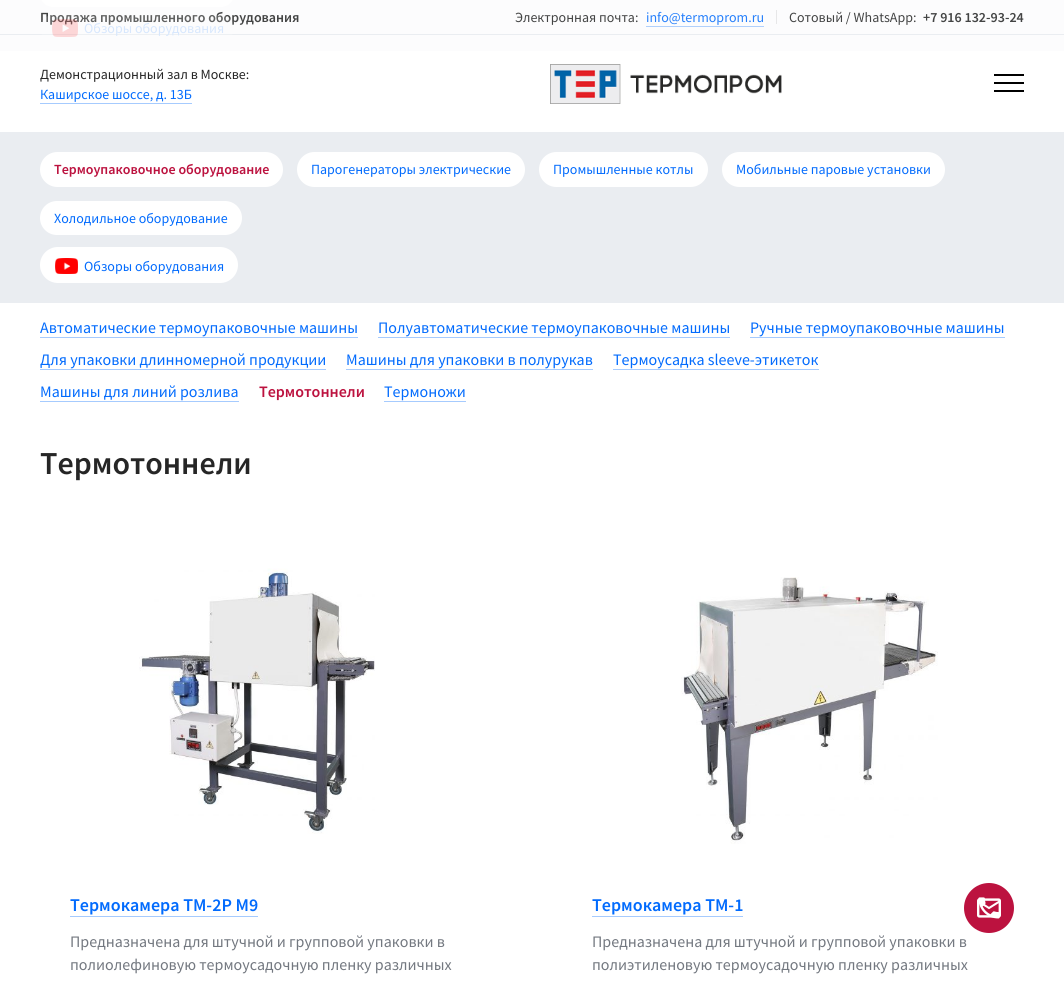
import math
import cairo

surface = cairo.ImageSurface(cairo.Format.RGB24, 1064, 983)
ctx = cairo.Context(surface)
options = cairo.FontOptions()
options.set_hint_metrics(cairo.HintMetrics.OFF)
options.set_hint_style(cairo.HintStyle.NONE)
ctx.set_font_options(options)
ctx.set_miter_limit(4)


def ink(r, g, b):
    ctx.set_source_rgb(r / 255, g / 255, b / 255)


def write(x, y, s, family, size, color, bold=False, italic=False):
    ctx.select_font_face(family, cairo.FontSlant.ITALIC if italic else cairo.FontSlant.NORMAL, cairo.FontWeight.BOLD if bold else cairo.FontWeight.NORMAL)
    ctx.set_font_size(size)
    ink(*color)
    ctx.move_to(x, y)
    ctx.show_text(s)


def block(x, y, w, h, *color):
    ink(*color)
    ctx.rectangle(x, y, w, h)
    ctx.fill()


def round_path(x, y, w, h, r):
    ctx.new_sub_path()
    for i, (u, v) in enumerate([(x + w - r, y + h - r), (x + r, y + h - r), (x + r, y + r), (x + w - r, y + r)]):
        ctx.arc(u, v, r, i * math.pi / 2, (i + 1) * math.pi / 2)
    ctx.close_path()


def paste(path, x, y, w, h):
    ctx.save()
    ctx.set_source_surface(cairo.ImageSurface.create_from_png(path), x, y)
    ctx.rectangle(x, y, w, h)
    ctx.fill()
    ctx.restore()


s1 = dict(family="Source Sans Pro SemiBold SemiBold", size=14, color=(67, 68, 68))
s2 = dict(family="Source Sans Pro", size=14, color=(67, 68, 68))
s3 = dict(family="Source Sans Pro", size=14, color=(37, 127, 251))
s4 = dict(family="Source Sans Pro", size=14, color=(38, 38, 38))
s5 = dict(family="Source Sans Pro", size=14, color=(2, 107, 253))
s6 = dict(family="Source Sans Pro", size=14, color=(215, 231, 253))
s7 = dict(family="Source Sans Pro SemiBold SemiBold", size=14, color=(188, 18, 63))
s8 = dict(family="Source Sans Pro", size=16, color=(2, 107, 253))
s9 = dict(family="Source Sans Pro SemiBold SemiBold", size=16, color=(188, 18, 63))
s10 = dict(family="Source Sans Pro SemiBold SemiBold", size=32, color=(38, 38, 38))
s11 = dict(family="Source Sans Pro SemiBold SemiBold", size=18, color=(2, 107, 253))
s12 = dict(family="Source Sans Pro", size=16, color=(115, 120, 128))

ink(255, 255, 255)
ctx.paint()
block(0, 0, 1064, 51, 252, 252, 253)
block(0, 34, 1064, 1, 234, 237, 241)
write(40, 22, "Продажа промышленного оборудования", **s1)
block(776, 10, 1, 14, 231, 231, 232)
write(515, 22, "Электронная почта:", **s2)
write(646, 22, "info@termoprom.ru", **s3)
block(646, 26, 118, 1, 176, 208, 252)
write(789, 22, "Сотовый / WhatsApp:", **s2)
write(923, 22, "+7 916 132-93-24", **s1)
write(40, 79, "Демонстрационный зал в Москве:", **s4)
write(40, 99, "Каширское шоссе, д. 13Б", **s5)
block(40, 103, 152, 1, 166, 203, 254)
paste("pic1.png", 550, 64, 232, 40)
block(994, 74, 30, 2, 0, 0, 0)
block(994, 82, 30, 2, 0, 0, 0)
block(994, 90, 30, 2, 0, 0, 0)
ink(255, 255, 255)
round_path(40, -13, 194, 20, 13)
ctx.fill()
ctx.set_source_rgba(1, 1, 1, 0.15)
round_path(40, 15, 194, 26, 13)
ctx.fill()
paste("pic2.png", 52, 19, 26, 18)
write(84, 33, "Обзоры оборудования", **s6)
block(0, 132, 1064, 171, 234, 237, 241)
ink(255, 255, 255)
round_path(40, 152, 243, 35, 17.5)
ctx.fill()
write(54, 174, "Термоупаковочное оборудование", **s7)
ink(255, 255, 255)
round_path(297, 152, 228, 35, 17.5)
ctx.fill()
write(311, 174, "Парогенераторы электрические", **s5)
ink(255, 255, 255)
round_path(539, 152, 169, 35, 17.5)
ctx.fill()
write(553, 174, "Промышленные котлы", **s5)
ink(255, 255, 255)
round_path(722, 152, 223, 35, 17.5)
ctx.fill()
write(736, 174, "Мобильные паровые установки", **s5)
ink(255, 255, 255)
round_path(40, 201, 202, 34, 17)
ctx.fill()
write(54, 223, "Холодильное оборудование", **s5)
ink(255, 255, 255)
round_path(40, 247, 198, 36, 18)
ctx.fill()
paste("pic3.png", 55, 258, 23, 16)
write(84, 271, "Обзоры оборудования", **s5)
write(40, 333, "Автоматические термоупаковочные машины", **s8)
block(40, 337, 318, 1, 166, 203, 254)
write(378, 333, "Полуавтоматические термоупаковочные машины", **s8)
block(378, 337, 352, 1, 166, 203, 254)
write(750, 333, "Ручные термоупаковочные машины", **s8)
block(750, 337, 255, 1, 166, 203, 254)
write(40, 365, "Для упаковки длинномерной продукции", **s8)
block(40, 369, 286, 1, 166, 203, 254)
write(346, 365, "Машины для упаковки в полурукав", **s8)
block(346, 369, 247, 1, 166, 203, 254)
write(613, 365, "Термоусадка sleeve-этикеток", **s8)
block(613, 369, 206, 1, 166, 203, 254)
write(40, 397, "Машины для линий розлива", **s8)
block(40, 401, 199, 1, 166, 203, 254)
write(259, 397, "Термотоннели", **s9)
write(384, 397, "Термоножи", **s8)
block(384, 401, 82, 1, 166, 203, 254)
write(40, 474, "Термотоннели", **s10)
paste("pic4.png", 139, 568, 236, 266)
write(70, 911, "Термокамера ТМ-2Р М9", **s11)
block(70, 916, 188, 1, 166, 203, 254)
write(70, 947, "Предназначена для штучной и групповой упаковки в", **s12)
write(70, 970, "полиолефиновую термоусадочную пленку различных", **s12)
paste("pic5.png", 681, 577, 257, 267)
write(592, 911, "Термокамера ТМ-1", **s11)
block(592, 916, 151, 1, 166, 203, 254)
write(592, 947, "Предназначена для штучной и групповой упаковки в", **s12)
write(592, 970, "полиэтиленовую термоусадочную пленку различных", **s12)
ink(188, 18, 63)
ctx.new_path()
ctx.arc(989, 908, 25, 0, 2 * math.pi)
ctx.fill()
paste("pic7.png", 977, 898, 24, 20)
paste("pic6.png", 978, 897, 22, 22)
surface.write_to_png("screenshot.png")
